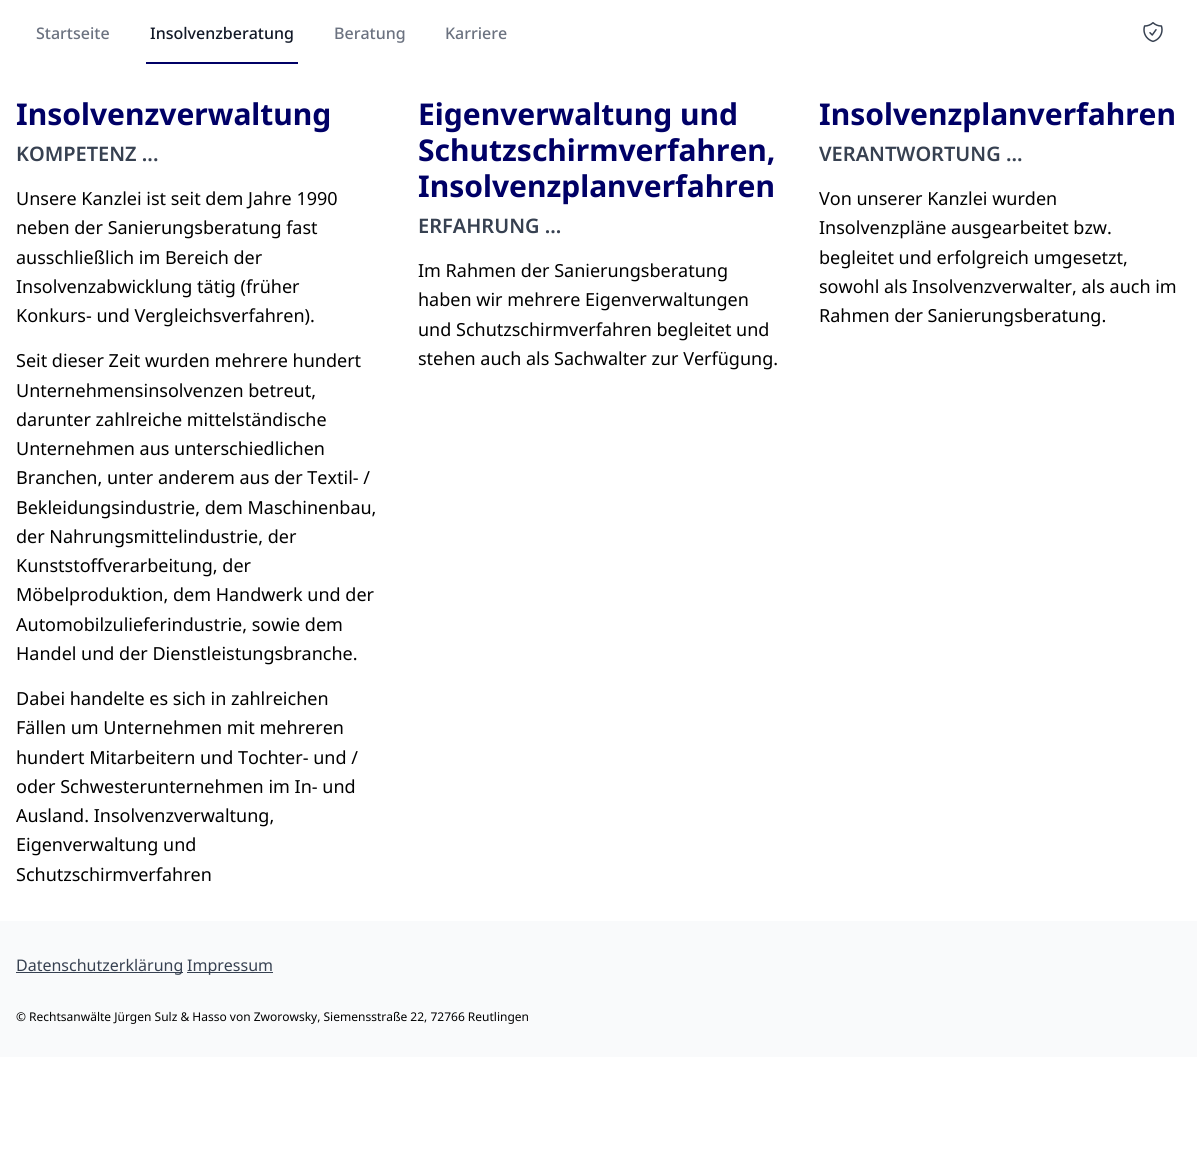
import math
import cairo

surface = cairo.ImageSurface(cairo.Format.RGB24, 1197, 1169)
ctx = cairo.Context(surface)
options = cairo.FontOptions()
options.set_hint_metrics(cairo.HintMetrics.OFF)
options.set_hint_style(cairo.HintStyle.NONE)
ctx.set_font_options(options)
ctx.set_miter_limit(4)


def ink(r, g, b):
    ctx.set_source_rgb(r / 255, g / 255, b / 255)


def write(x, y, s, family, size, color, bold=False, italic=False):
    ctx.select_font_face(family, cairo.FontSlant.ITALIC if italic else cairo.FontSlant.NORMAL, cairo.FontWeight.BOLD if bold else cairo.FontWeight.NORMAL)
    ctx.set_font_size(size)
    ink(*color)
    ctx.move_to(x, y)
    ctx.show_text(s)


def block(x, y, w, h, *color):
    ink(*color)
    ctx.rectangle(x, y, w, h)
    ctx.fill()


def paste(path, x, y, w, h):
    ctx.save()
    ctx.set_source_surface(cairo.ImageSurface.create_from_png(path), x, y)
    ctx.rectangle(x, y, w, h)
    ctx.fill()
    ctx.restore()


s1 = dict(family="Noto Sans Medium", size=16, color=(107, 114, 128))
s2 = dict(family="Noto Sans Medium", size=16, color=(17, 24, 39))
s3 = dict(family="Noto Sans", size=30, color=(0, 0, 102), bold=True)
s4 = dict(family="Noto Sans SemiBold", size=20, color=(55, 65, 81))
s5 = dict(family="Noto Sans", size=18, color=(0, 0, 0))
s6 = dict(family="Noto Sans", size=16, color=(55, 65, 81))
s7 = dict(family="Noto Sans", size=12, color=(0, 0, 0))

ink(255, 255, 255)
ctx.paint()
write(36, 39, "Startseite", **s1)
block(146, 62, 152, 2, 0, 0, 102)
write(150, 39, "Insolvenzberatung", **s2)
write(334, 39, "Beratung", **s1)
write(445, 39, "Karriere", **s1)
paste("pic1.png", 1143, 22, 20, 21)
write(16, 125, "Insolvenzverwaltung", **s3)
write(16, 161, "KOMPETENZ ...", **s4)
write(16, 205, "Unsere Kanzlei ist seit dem Jahre 1990", **s5)
write(16, 234, "neben der Sanierungsberatung fast", **s5)
write(16, 264, "ausschließlich im Bereich der", **s5)
write(16, 293, "Insolvenzabwicklung tätig (früher", **s5)
write(16, 322, "Konkurs- und Vergleichsverfahren).", **s5)
write(16, 367, "Seit dieser Zeit wurden mehrere hundert", **s5)
write(16, 397, "Unternehmensinsolvenzen betreut,", **s5)
write(16, 426, "darunter zahlreiche mittelständische", **s5)
write(16, 455, "Unternehmen aus unterschiedlichen", **s5)
write(16, 484, "Branchen, unter anderem aus der Textil- /", **s5)
write(16, 514, "Bekleidungsindustrie, dem Maschinenbau,", **s5)
write(16, 543, "der Nahrungsmittelindustrie, der", **s5)
write(16, 572, "Kunststoffverarbeitung, der", **s5)
write(16, 601, "Möbelproduktion, dem Handwerk und der", **s5)
write(16, 631, "Automobilzulieferindustrie, sowie dem", **s5)
write(16, 660, "Handel und der Dienstleistungsbranche.", **s5)
write(16, 705, "Dabei handelte es sich in zahlreichen", **s5)
write(16, 734, "Fällen um Unternehmen mit mehreren", **s5)
write(16, 764, "hundert Mitarbeitern und Tochter- und /", **s5)
write(16, 793, "oder Schwesterunternehmen im In- und", **s5)
write(16, 822, "Ausland. Insolvenzverwaltung,", **s5)
write(16, 851, "Eigenverwaltung und", **s5)
write(16, 881, "Schutzschirmverfahren", **s5)
write(418, 125, "Eigenverwaltung und", **s3)
write(418, 161, "Schutzschirmverfahren,", **s3)
write(418, 197, "Insolvenzplanverfahren", **s3)
write(418, 233, "ERFAHRUNG ...", **s4)
write(418, 277, "Im Rahmen der Sanierungsberatung", **s5)
write(418, 306, "haben wir mehrere Eigenverwaltungen", **s5)
write(418, 336, "und Schutzschirmverfahren begleitet und", **s5)
write(418, 365, "stehen auch als Sachwalter zur Verfügung.", **s5)
write(819, 125, "Insolvenzplanverfahren", **s3)
write(819, 161, "VERANTWORTUNG ...", **s4)
write(819, 205, "Von unserer Kanzlei wurden", **s5)
write(819, 234, "Insolvenzpläne ausgearbeitet bzw.", **s5)
write(819, 264, "begleitet und erfolgreich umgesetzt,", **s5)
write(819, 293, "sowohl als Insolvenzverwalter, als auch im", **s5)
write(819, 322, "Rahmen der Sanierungsberatung.", **s5)
block(0, 921, 1197, 136, 249, 250, 251)
block(16, 972, 167, 1, 55, 65, 81)
write(16, 971, "Datenschutzerklärung", **s6)
block(187, 972, 86, 1, 55, 65, 81)
write(187, 971, "Impressum", **s6)
write(16, 1021, "© Rechtsanwälte Jürgen Sulz & Hasso von Zworowsky, Siemensstraße 22, 72766 Reutlingen", **s7)
surface.write_to_png("screenshot.png")
